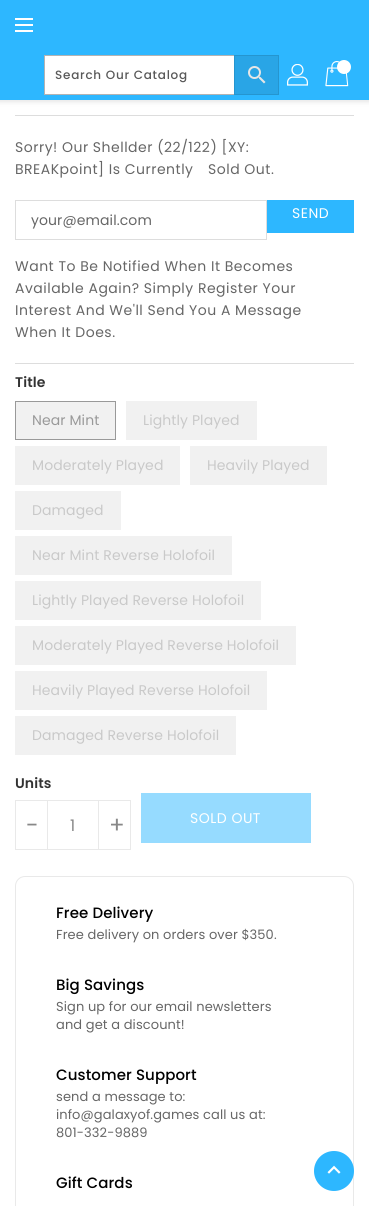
import math
import cairo

surface = cairo.ImageSurface(cairo.Format.RGB24, 369, 1206)
ctx = cairo.Context(surface)
options = cairo.FontOptions()
options.set_hint_metrics(cairo.HintMetrics.OFF)
options.set_hint_style(cairo.HintStyle.NONE)
ctx.set_font_options(options)
ctx.set_miter_limit(4)


def ink(r, g, b):
    ctx.set_source_rgb(r / 255, g / 255, b / 255)


def write_spaced(x, y, s, letter, word):
    ctx.move_to(x, y)
    for ch in s:
        ctx.show_text(ch)
        ctx.rel_move_to(letter + word * (ch == ' '), 0)


def block(x, y, w, h, *color):
    ink(*color)
    ctx.rectangle(x, y, w, h)
    ctx.fill()


def round_path(x, y, w, h, r):
    ctx.new_sub_path()
    for i, (u, v) in enumerate([(x + w - r, y + h - r), (x + r, y + h - r), (x + r, y + r), (x + w - r, y + r)]):
        ctx.arc(u, v, r, i * math.pi / 2, (i + 1) * math.pi / 2)
    ctx.close_path()


def blur_box(x, y, w, h, r, blur, alpha):
    ctx.push_group_with_content(cairo.Content.ALPHA)
    ctx.set_operator(cairo.Operator.SOURCE)
    for i in range(15, -16, -2):
        e = blur * i / 6
        if min(w, h) + 2 * e > 0:
            ctx.set_source_rgba(0, 0, 0, alpha * math.erfc((i - 1) / 8.5) / 2)
            round_path(x - e, y - e, w + 2 * e, h + 2 * e, max(0, min(r + e + blur * .6, min(w, h) / 2 + e)))
            ctx.fill()
    ctx.mask(ctx.pop_group())


def paste(path, x, y, w, h):
    ctx.save()
    ctx.set_source_surface(cairo.ImageSurface.create_from_png(path), x, y)
    ctx.rectangle(x, y, w, h)
    ctx.fill()
    ctx.restore()


ink(255, 255, 255)
ctx.paint()
ink(0, 0, 0)
blur_box(-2, -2, 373, 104, 0, 2.5, 0.1)
block(0, 0, 369, 100, 45, 183, 255)
block(15, 18, 18, 2, 255, 255, 255)
block(15, 24, 18, 2, 255, 255, 255)
block(15, 30, 18, 2, 255, 255, 255)
block(45, 56, 189, 38, 255, 255, 255)
ctx.rectangle(44.5, 55.5, 234, 39)
ink(179, 179, 179)
ctx.set_line_width(1)
ctx.stroke()
ctx.select_font_face("Poppins Medium")
ctx.set_font_size(12)
ink(89, 89, 89)
write_spaced(55, 79, "Search Our Catalog", 0.75, 0)
ink(41, 165, 230)
ctx.rectangle(234.5, 55.5, 44, 39)
ctx.fill_preserve()
ink(37, 149, 207)
ctx.stroke()
paste("pic1.png", 248, 66, 18, 18)
paste("pic2.png", 287, 64, 21, 22)
paste("pic3.png", 325, 61, 24, 26)
ink(255, 255, 255)
ctx.arc(344, 67, 7, 0, 2 * math.pi)
ctx.fill()
block(15, 115, 339, 1, 221, 221, 221)
block(15, 363, 339, 1, 221, 221, 221)
ctx.select_font_face("Poppins")
ctx.set_font_size(14)
ink(102, 102, 102)
write_spaced(15, 152, "Sorry! Our Shellder (22/122) [XY:", 0.5, 0)
write_spaced(15, 174, "BREAKpoint] Is Currently", 0.5, 0)
write_spaced(208, 174, "Sold Out.", 0.5, 0)
ctx.rectangle(15.5, 200.5, 251, 39)
ink(221, 221, 221)
ctx.stroke()
ink(102, 102, 102)
write_spaced(31, 225, "your@email.com", 0.1, 0)
block(267, 200, 87, 33, 45, 183, 255)
ink(255, 255, 255)
write_spaced(292, 218, "SEND", 0.5, 0)
ink(102, 102, 102)
write_spaced(15, 271, "Want To Be Notified When It Becomes", 0.5, 0)
write_spaced(15, 293, "Available Again? Simply Register Your", 0.5, 0)
write_spaced(15, 315, "Interest And We'll Send You A Message", 0.5, 0)
write_spaced(15, 337, "When It Does.", 0.5, 0)
ctx.select_font_face("Poppins SemiBold")
ink(51, 51, 51)
write_spaced(15, 387, "Title", 0.1, 0)
ink(241, 241, 241)
ctx.rectangle(15.5, 401.5, 100, 38)
ctx.fill_preserve()
ink(153, 153, 153)
ctx.stroke()
ctx.select_font_face("Poppins")
write_spaced(32, 425, "Near Mint", 0.1, 0)
block(126, 401, 131, 39, 241, 241, 241)
ink(201, 201, 201)
write_spaced(143, 425, "Lightly Played", 0.1, 0)
block(15, 446, 165, 39, 241, 241, 241)
ink(201, 201, 201)
write_spaced(32, 470, "Moderately Played", 0.1, 0)
block(190, 446, 137, 39, 241, 241, 241)
ink(201, 201, 201)
write_spaced(207, 470, "Heavily Played", 0.1, 0)
block(15, 491, 106, 39, 241, 241, 241)
ink(201, 201, 201)
write_spaced(32, 515, "Damaged", 0.1, 0)
block(15, 536, 217, 39, 241, 241, 241)
ink(201, 201, 201)
write_spaced(32, 560, "Near Mint Reverse Holofoil", 0.1, 0)
block(15, 581, 246, 39, 241, 241, 241)
ink(201, 201, 201)
write_spaced(32, 605, "Lightly Played Reverse Holofoil", 0.1, 0)
block(15, 626, 281, 39, 241, 241, 241)
ink(201, 201, 201)
write_spaced(32, 650, "Moderately Played Reverse Holofoil", 0.1, 0)
block(15, 671, 252, 39, 241, 241, 241)
ink(201, 201, 201)
write_spaced(32, 695, "Heavily Played Reverse Holofoil", 0.1, 0)
block(15, 716, 221, 39, 241, 241, 241)
ink(201, 201, 201)
write_spaced(32, 740, "Damaged Reverse Holofoil", 0.1, 0)
ctx.select_font_face("Poppins SemiBold")
ink(51, 51, 51)
write_spaced(15, 788, "Units", 0.1, 0)
ctx.rectangle(15.5, 800.5, 32, 49)
ink(233, 233, 233)
ctx.stroke()
ctx.select_font_face("Poppins")
ctx.set_font_size(23)
ink(136, 136, 136)
write_spaced(26, 833, "-", 0.5, 0)
block(48, 800, 50, 1, 233, 233, 233)
block(48, 849, 50, 1, 233, 233, 233)
ctx.set_font_size(16)
ink(136, 136, 136)
write_spaced(70, 831, "1", 0.1, 0)
ctx.rectangle(98.5, 800.5, 32, 49)
ink(233, 233, 233)
ctx.stroke()
ctx.set_font_size(23)
ink(136, 136, 136)
write_spaced(109, 833, "+", 0.5, 0)
block(141, 793, 170, 50, 150, 219, 255)
ctx.set_font_size(14)
ink(255, 255, 255)
write_spaced(190, 823, "SOLD OUT", 0.5, 0)
round_path(15.5, 876.5, 338, 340, 9.5)
ink(233, 233, 233)
ctx.stroke()
ctx.select_font_face("Poppins Medium")
ctx.set_font_size(15)
ink(0, 0, 0)
write_spaced(56, 918, "Free Delivery", 0.1, 0)
ctx.select_font_face("Poppins")
ctx.set_font_size(13)
ink(102, 102, 102)
write_spaced(56, 939, "Free delivery on orders over $350.", 0.1, 0)
ctx.select_font_face("Poppins Medium")
ctx.set_font_size(15)
ink(0, 0, 0)
write_spaced(56, 990, "Big Savings", 0.1, 0)
ctx.select_font_face("Poppins")
ctx.set_font_size(13)
ink(102, 102, 102)
write_spaced(56, 1011, "Sign up for our email newsletters", 0.1, 0)
write_spaced(56, 1029, "and get a discount!", 0.1, 0)
ctx.select_font_face("Poppins Medium")
ctx.set_font_size(15)
ink(0, 0, 0)
write_spaced(56, 1080, "Customer Support", 0.1, 0)
ctx.select_font_face("Poppins")
ctx.set_font_size(13)
ink(102, 102, 102)
write_spaced(56, 1101, "send a message to:", 0.1, 0)
write_spaced(56, 1119, "info@galaxyof.games call us at:", 0.1, 0)
write_spaced(56, 1137, "801-332-9889", 0.1, 0)
ctx.select_font_face("Poppins Medium")
ctx.set_font_size(15)
ink(0, 0, 0)
write_spaced(56, 1188, "Gift Cards", 0.1, 0)
ink(45, 183, 255)
ctx.new_path()
ctx.arc(334, 1171, 20, 0, 2 * math.pi)
ctx.fill()
paste("pic4.png", 327, 1165, 14, 9)
surface.write_to_png("screenshot.png")
